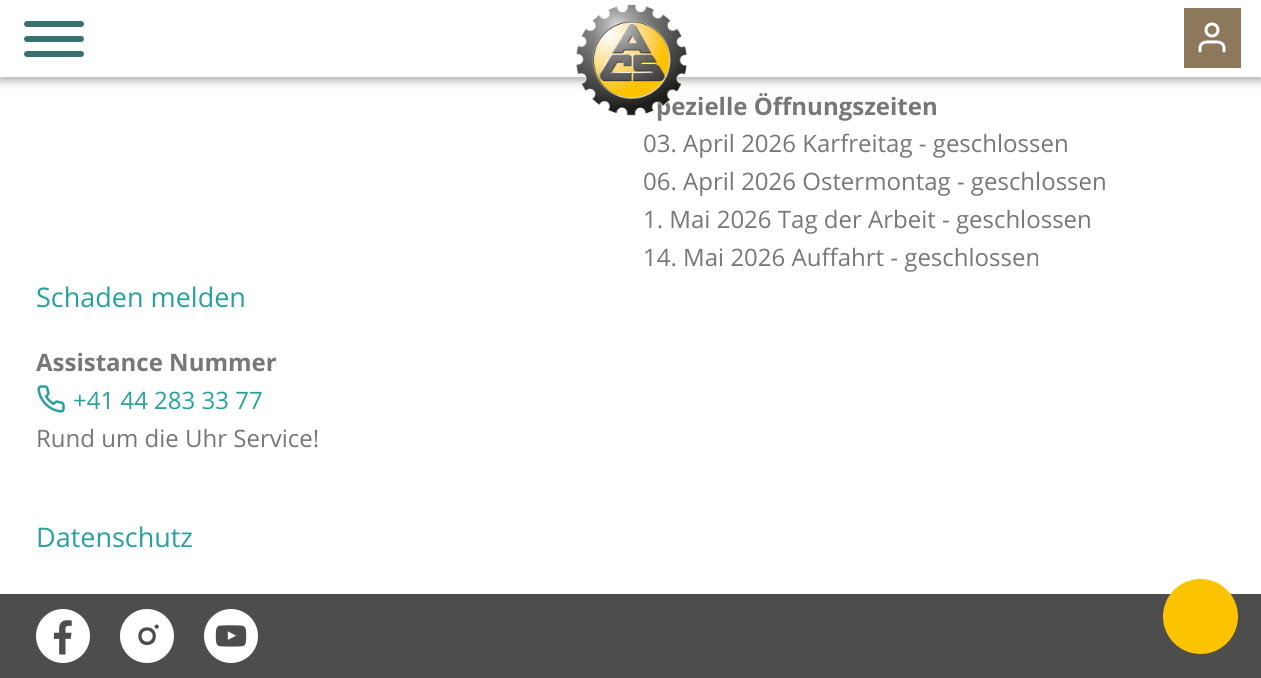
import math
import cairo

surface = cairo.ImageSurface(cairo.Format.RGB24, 1261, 678)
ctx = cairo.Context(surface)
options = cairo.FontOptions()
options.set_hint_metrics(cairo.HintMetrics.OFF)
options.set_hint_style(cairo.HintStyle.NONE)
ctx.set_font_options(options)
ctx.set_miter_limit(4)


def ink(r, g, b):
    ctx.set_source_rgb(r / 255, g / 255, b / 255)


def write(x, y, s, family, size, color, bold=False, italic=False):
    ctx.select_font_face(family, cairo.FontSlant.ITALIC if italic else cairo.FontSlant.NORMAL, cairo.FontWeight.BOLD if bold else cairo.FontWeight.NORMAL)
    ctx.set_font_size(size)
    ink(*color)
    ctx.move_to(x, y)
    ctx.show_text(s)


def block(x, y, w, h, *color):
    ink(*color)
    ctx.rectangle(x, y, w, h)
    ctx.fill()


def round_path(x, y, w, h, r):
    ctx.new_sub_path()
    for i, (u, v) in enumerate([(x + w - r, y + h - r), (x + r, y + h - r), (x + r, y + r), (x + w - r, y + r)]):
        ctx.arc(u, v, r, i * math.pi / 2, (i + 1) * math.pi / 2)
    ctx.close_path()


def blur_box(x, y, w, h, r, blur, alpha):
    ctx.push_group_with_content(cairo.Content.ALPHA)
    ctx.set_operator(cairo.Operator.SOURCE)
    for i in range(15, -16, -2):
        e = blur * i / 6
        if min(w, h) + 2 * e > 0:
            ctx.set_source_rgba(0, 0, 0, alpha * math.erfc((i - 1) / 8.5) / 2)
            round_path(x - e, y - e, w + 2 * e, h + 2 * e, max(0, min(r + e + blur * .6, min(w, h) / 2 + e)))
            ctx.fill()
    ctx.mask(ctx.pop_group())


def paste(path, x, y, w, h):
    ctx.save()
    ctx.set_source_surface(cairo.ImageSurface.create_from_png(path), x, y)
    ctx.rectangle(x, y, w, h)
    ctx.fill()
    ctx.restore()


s1 = dict(family="Open Sans", size=24, color=(119, 119, 118), bold=True)
s2 = dict(family="Open Sans", size=24, color=(119, 119, 118))
s3 = dict(family="Open Sans", size=27, color=(40, 160, 156))
s4 = dict(family="Open Sans", size=24, color=(40, 160, 156))

ink(255, 255, 255)
ctx.paint()
ink(0, 0, 0)
blur_box(0, 5, 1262, 76, 0, 4.5, 0.3)
block(0, 0, 1261, 77, 255, 255, 255)
ink(56, 113, 111)
round_path(24, 36, 60, 6, 3)
ctx.fill()
round_path(24, 21, 60, 6, 3)
ctx.fill()
round_path(24, 51, 60, 6, 3)
ctx.fill()
write(656, 115, "pezielle Öffnungszeiten", **s1)
paste("pic1.png", 575, 4, 112, 112)
block(1184, 8, 57, 60, 142, 120, 92)
ctx.new_path()
ctx.move_to(1224, 51)
ctx.line_to(1224, 47)
ctx.curve_to(1222.5, 41, 1216.5, 42, 1212, 42)
ctx.curve_to(1207.5, 42, 1201.5, 41, 1200, 47)
ctx.line_to(1200, 51)
ink(255, 255, 255)
ctx.set_line_width(3)
ctx.set_line_cap(cairo.LineCap.ROUND)
ctx.set_line_join(cairo.LineJoin.ROUND)
ctx.stroke()
ctx.arc(1212, 30, 6, 0, 2 * math.pi)
ctx.set_line_cap(cairo.LineCap.BUTT)
ctx.set_line_join(cairo.LineJoin.MITER)
ctx.stroke()
write(643, 152, "03. April 2026 Karfreitag - geschlossen", **s2)
write(643, 190, "06. April 2026 Ostermontag - geschlossen", **s2)
write(643, 228, "1. Mai 2026 Tag der Arbeit - geschlossen", **s2)
write(643, 266, "14. Mai 2026 Auffahrt - geschlossen", **s2)
write(36, 307, "Schaden melden", **s3)
write(36, 371, "Assistance Nummer", **s1)
paste("pic2.png", 37, 385, 28, 28)
write(73, 409, "+41 44 283 33 77", **s4)
write(36, 447, "Rund um die Uhr Service!", **s2)
write(36, 547, "Datenschutz", **s3)
block(0, 594, 1261, 84, 77, 77, 77)
ink(255, 255, 255)
ctx.new_path()
ctx.arc(63, 636, 27, 0, 2 * math.pi)
ctx.fill()
paste("pic3.png", 53, 620, 19, 35)
ctx.arc(147, 636, 27, 0, 2 * math.pi)
ctx.fill()
paste("pic4.png", 138, 624, 21, 22)
ctx.arc(231, 636, 27, 0, 2 * math.pi)
ctx.fill()
paste("pic5.png", 215, 625, 32, 22)
ink(252, 195, 0)
ctx.arc(1200.5, 616.5, 37.5, 0, 2 * math.pi)
ctx.fill()
surface.write_to_png("screenshot.png")
